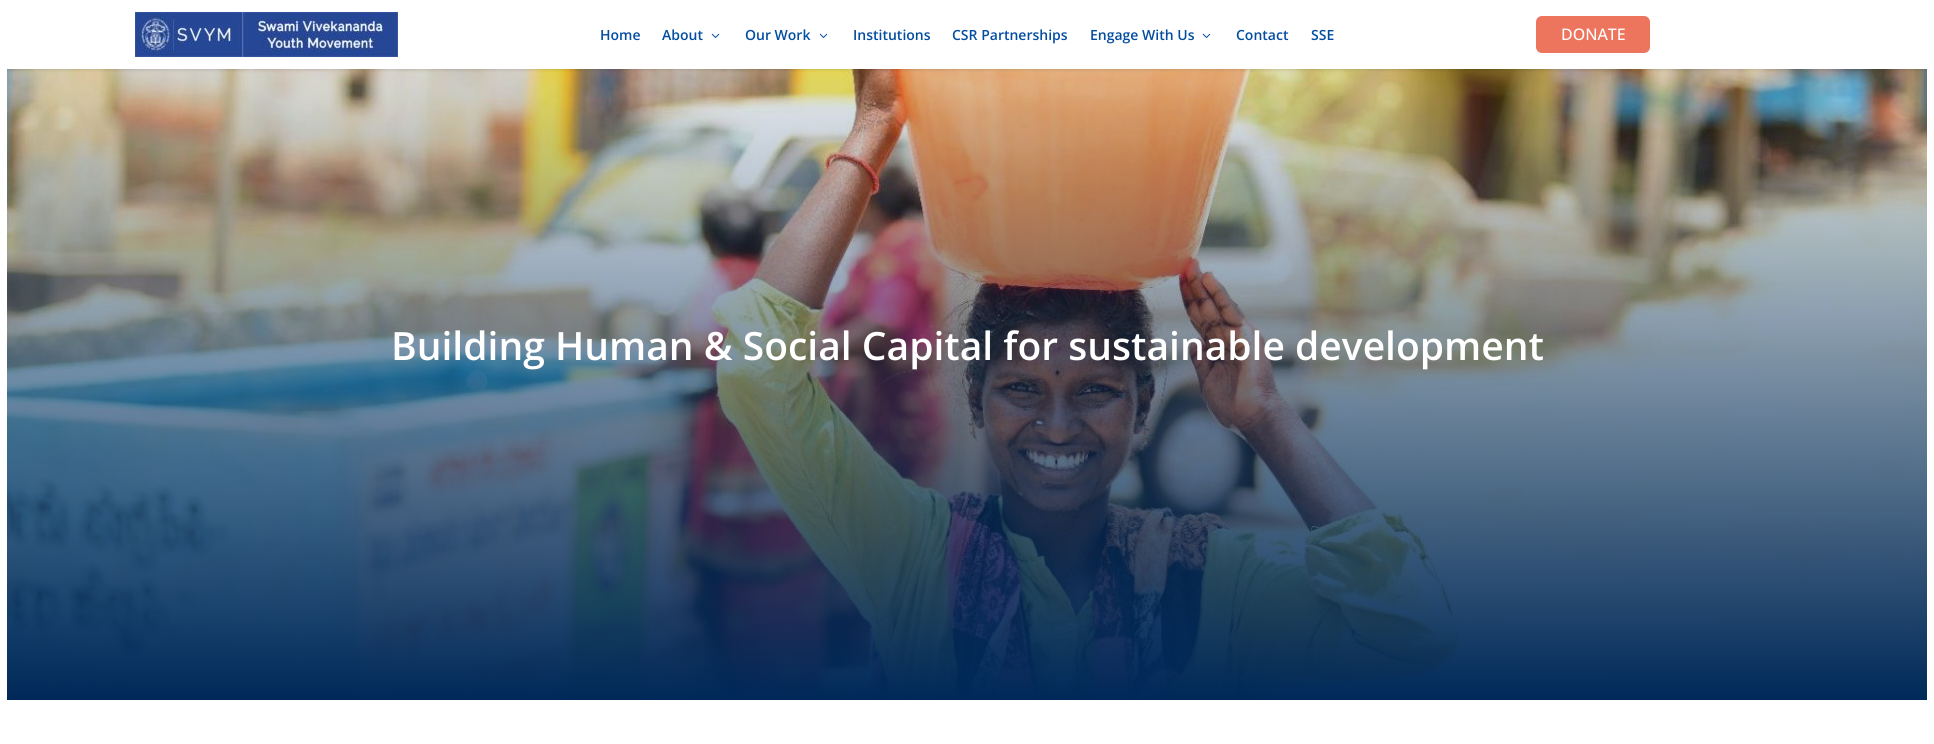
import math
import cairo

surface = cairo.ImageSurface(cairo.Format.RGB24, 1934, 744)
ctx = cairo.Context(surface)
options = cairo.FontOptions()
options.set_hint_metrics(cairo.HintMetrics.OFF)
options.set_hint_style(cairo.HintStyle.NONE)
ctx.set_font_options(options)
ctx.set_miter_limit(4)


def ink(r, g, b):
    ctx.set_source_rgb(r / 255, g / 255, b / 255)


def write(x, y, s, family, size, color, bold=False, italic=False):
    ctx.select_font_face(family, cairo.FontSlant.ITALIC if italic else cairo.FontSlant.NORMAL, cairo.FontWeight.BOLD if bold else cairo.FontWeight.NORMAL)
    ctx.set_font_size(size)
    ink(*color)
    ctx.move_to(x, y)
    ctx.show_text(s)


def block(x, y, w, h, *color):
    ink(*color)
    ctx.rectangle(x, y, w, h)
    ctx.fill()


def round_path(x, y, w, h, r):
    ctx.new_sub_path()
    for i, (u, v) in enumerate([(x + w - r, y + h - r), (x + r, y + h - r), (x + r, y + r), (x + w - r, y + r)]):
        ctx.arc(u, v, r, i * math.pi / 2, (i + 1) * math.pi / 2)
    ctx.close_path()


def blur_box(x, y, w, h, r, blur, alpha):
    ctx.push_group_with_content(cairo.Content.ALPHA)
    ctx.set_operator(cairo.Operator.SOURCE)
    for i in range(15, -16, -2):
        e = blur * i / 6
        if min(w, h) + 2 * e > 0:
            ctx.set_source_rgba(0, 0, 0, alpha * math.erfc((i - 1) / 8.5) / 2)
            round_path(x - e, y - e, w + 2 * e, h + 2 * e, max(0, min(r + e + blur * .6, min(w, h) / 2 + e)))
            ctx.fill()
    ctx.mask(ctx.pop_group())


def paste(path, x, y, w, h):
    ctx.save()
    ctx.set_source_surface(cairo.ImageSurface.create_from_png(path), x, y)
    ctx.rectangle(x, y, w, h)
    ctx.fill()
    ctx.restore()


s1 = dict(family="Open Sans SemiBold", size=14, color=(3, 77, 161))
s2 = dict(family="Open Sans Medium", size=16, color=(255, 255, 255))
s3 = dict(family="Open Sans SemiBold", size=39, color=(255, 255, 255))

ink(255, 255, 255)
ctx.paint()
paste("pic3.png", 7, 69, 1920, 631)
ink(0, 0, 0)
blur_box(10, 19, 1914, 49, 0, 2.5, 0.3)
block(5, 14, 1924, 55, 255, 255, 255)
paste("pic1.png", 135, 12, 263, 45)
write(600, 40, "Home", **s1)
write(662, 40, "About", **s1)
paste("pic2.png", 711, 33, 9, 5)
write(745, 40, "Our Work", **s1)
paste("pic2.png", 819, 33, 9, 5)
write(853, 40, "Institutions", **s1)
write(952, 40, "CSR Partnerships", **s1)
write(1090, 40, "Engage With Us", **s1)
paste("pic2.png", 1202, 33, 9, 5)
write(1236, 40, "Contact", **s1)
write(1311, 40, "SSE", **s1)
ink(238, 117, 93)
round_path(1536, 16, 114, 37, 6)
ctx.fill()
write(1561, 40, "DONATE", **s2)
write(391, 360, "Building Human & Social Capital for sustainable development", **s3)
surface.write_to_png("screenshot.png")
